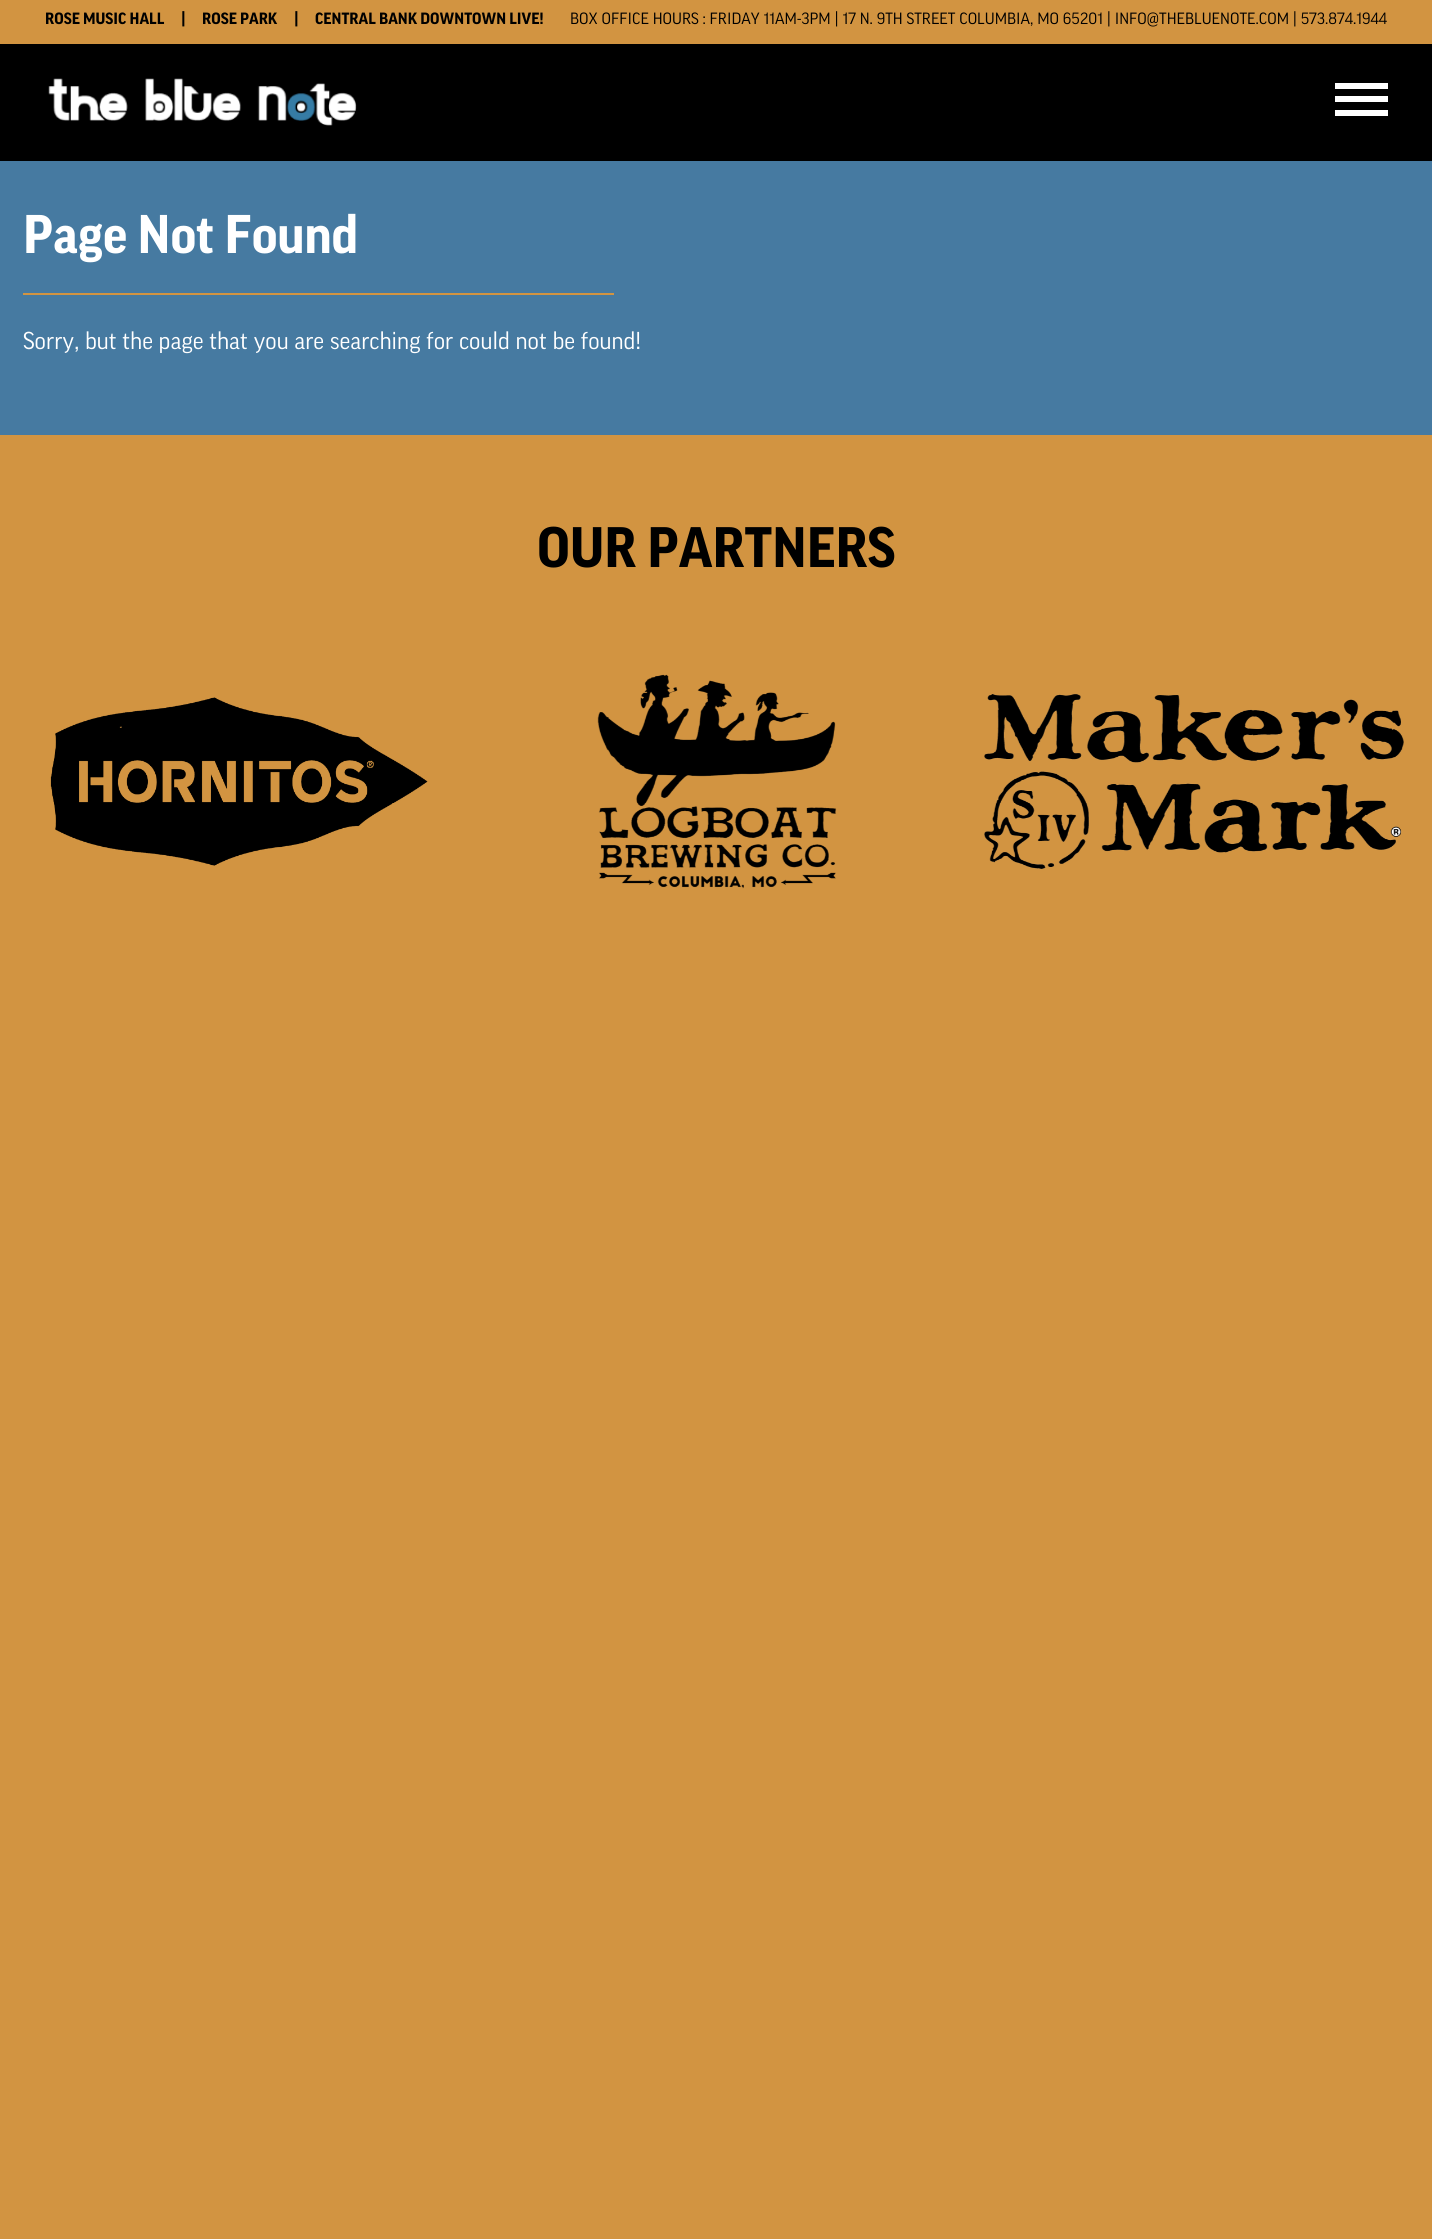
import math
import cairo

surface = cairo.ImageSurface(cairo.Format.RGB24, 1432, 2239)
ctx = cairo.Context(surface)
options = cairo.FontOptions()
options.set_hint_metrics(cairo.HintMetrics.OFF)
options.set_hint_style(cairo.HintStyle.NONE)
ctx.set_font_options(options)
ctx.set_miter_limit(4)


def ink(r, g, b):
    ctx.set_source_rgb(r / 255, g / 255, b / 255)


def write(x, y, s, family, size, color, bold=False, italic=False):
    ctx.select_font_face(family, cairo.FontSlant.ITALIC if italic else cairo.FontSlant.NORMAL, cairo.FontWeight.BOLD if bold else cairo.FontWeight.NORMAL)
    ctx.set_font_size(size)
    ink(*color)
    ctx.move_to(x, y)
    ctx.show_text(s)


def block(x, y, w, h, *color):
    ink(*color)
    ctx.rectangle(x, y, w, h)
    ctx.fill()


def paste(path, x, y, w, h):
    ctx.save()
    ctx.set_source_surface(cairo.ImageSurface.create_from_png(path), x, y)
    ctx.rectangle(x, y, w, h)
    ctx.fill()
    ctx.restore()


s1 = dict(family="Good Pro", size=15.75, color=(0, 0, 0), bold=True)
s2 = dict(family="Good Pro", size=15.75, color=(0, 0, 0))
s3 = dict(family="Good Pro", size=52.5, color=(255, 255, 255), bold=True)
s4 = dict(family="Good Pro", size=23.6, color=(255, 255, 255))
s5 = dict(family="Good Pro", size=55, color=(0, 0, 0), bold=True)

ink(70, 122, 161)
ctx.paint()
block(0, 0, 1432, 44, 210, 148, 65)
write(45, 24, "ROSE MUSIC HALL", **s1)
write(181, 24, "|", **s1)
write(202, 24, "ROSE PARK", **s1)
write(294, 24, "|", **s1)
write(315, 24, "CENTRAL BANK DOWNTOWN LIVE!", **s1)
write(570, 24, "BOX OFFICE HOURS : FRIDAY 11AM-3PM | 17 N. 9TH STREET COLUMBIA, MO 65201 | INFO@THEBLUENOTE.COM | 573.874.1944", **s2)
block(0, 44, 1432, 117, 0, 0, 0)
paste("pic1.png", 48, 78, 309, 48)
block(1335, 110, 53, 6, 255, 255, 255)
block(1335, 83, 53, 6, 255, 255, 255)
block(1335, 96, 53, 6, 255, 255, 255)
write(23, 253, "Page Not Found", **s3)
block(23, 293, 591, 2, 210, 148, 65)
write(23, 349, "Sorry, but the page that you are searching for could not be found!", **s4)
block(0, 435, 1432, 1804, 210, 148, 65)
write(537, 567, "OUR PARTNERS", **s5)
paste("pic2.png", 50, 697, 378, 169)
paste("pic3.png", 597, 674, 240, 215)
paste("pic4.png", 984, 694, 420, 175)
surface.write_to_png("screenshot.png")
